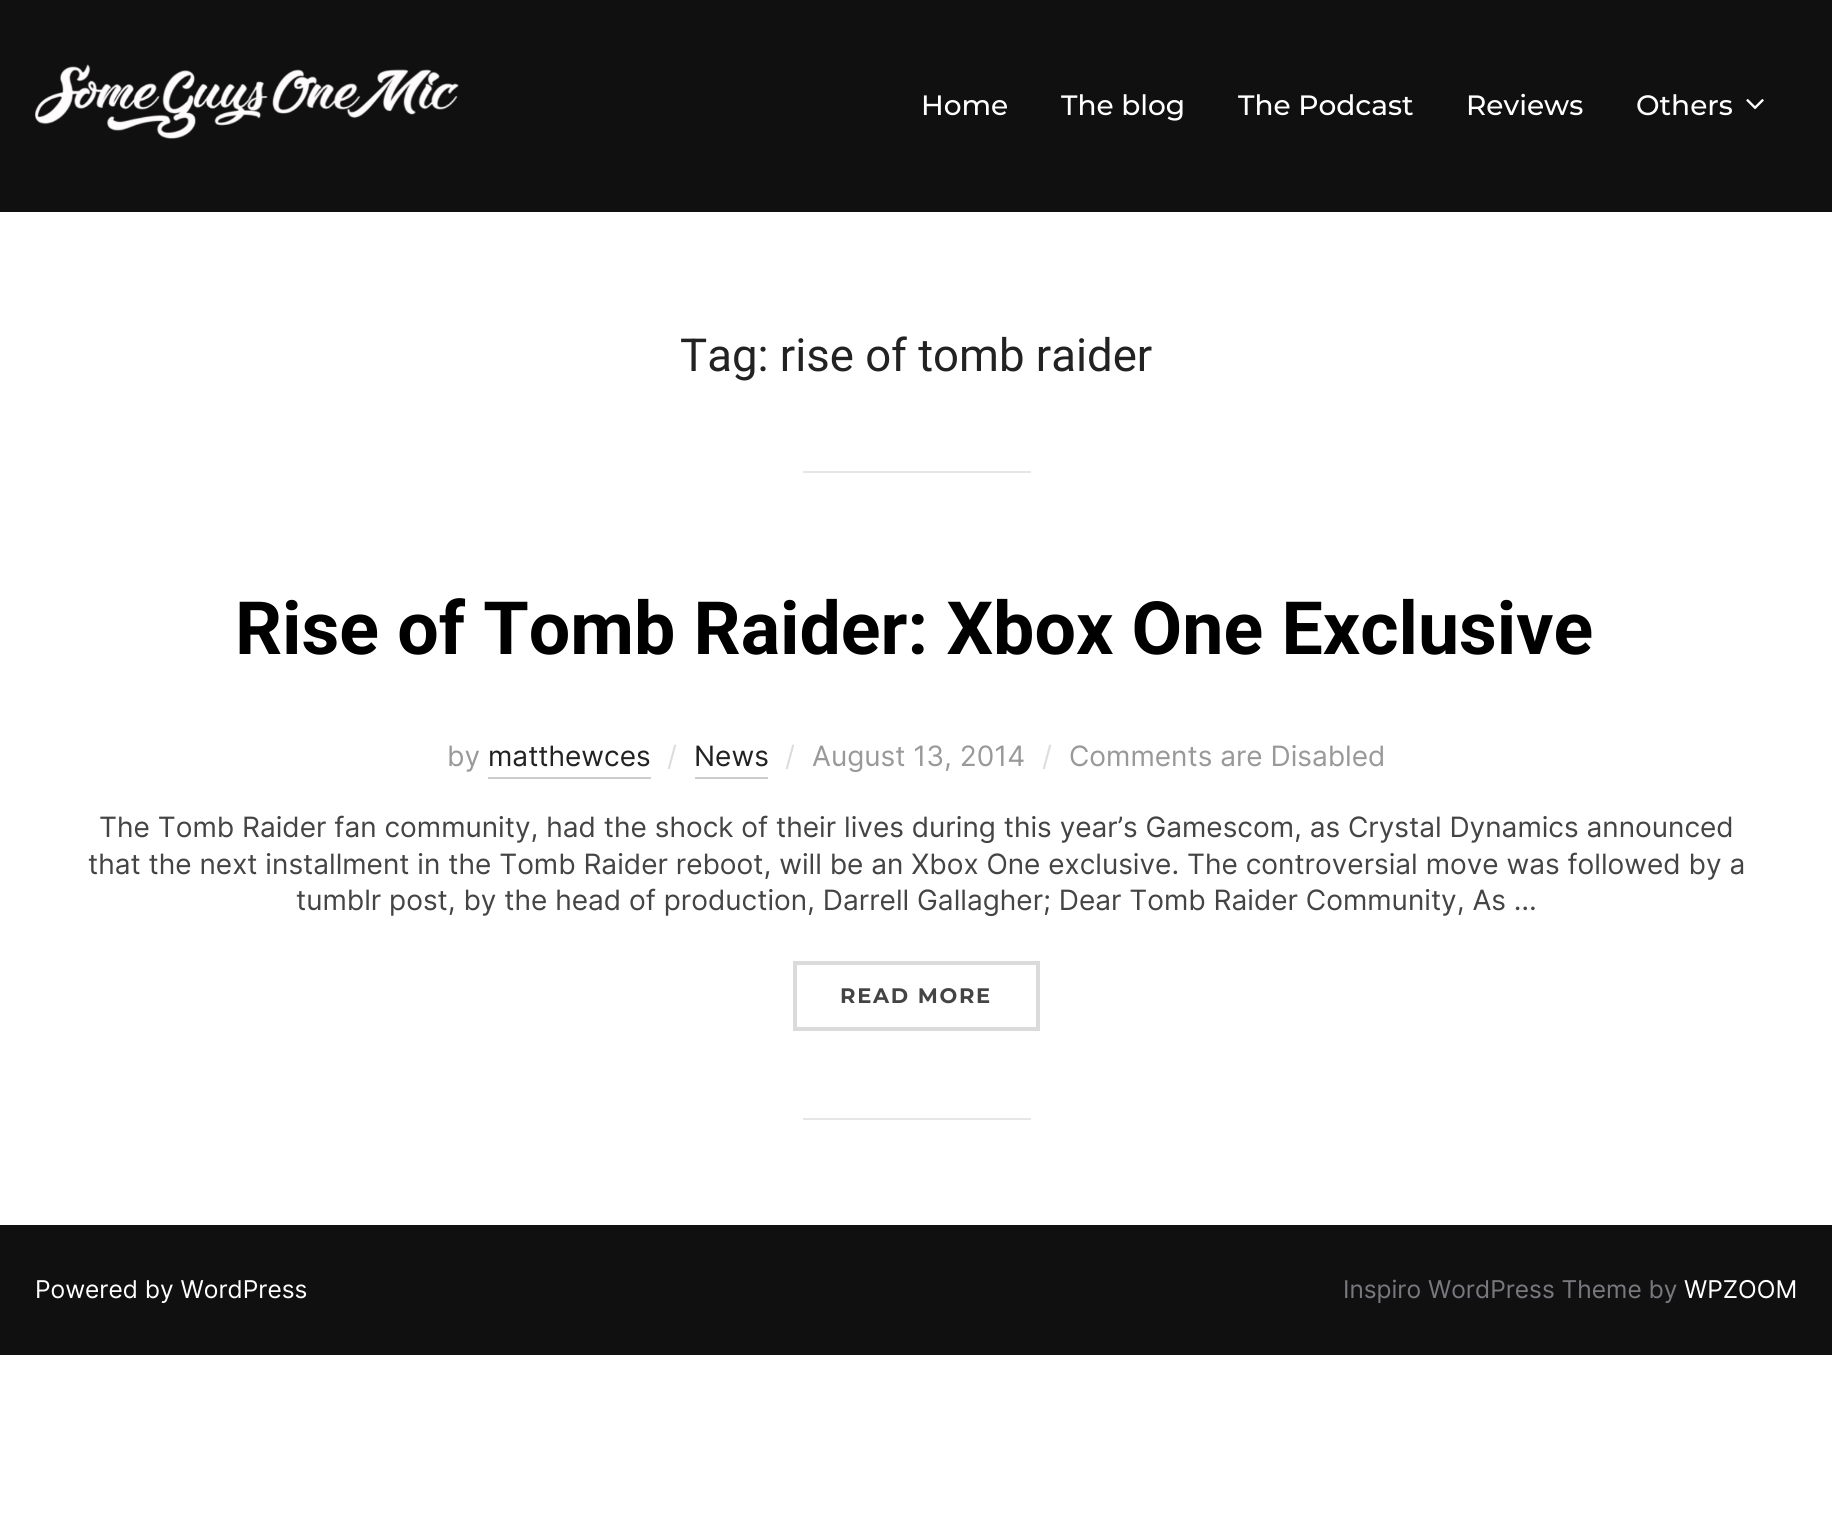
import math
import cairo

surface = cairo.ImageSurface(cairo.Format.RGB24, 1832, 1535)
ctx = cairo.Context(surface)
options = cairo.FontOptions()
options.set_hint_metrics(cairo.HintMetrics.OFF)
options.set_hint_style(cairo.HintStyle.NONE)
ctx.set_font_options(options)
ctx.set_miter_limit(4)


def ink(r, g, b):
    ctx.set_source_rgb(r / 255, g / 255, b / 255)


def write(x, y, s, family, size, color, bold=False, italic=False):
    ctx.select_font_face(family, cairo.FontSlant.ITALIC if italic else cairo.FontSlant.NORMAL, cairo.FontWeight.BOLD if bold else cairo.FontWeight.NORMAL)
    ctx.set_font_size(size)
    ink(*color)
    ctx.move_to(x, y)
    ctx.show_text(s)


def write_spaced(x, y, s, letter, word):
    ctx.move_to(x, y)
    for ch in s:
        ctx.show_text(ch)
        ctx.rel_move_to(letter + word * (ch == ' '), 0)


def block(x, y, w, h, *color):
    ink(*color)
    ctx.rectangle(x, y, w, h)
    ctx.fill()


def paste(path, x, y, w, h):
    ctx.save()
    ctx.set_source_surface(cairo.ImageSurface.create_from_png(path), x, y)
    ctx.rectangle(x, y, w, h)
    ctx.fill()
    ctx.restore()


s1 = dict(family="Montserrat Medium", size=28, color=(255, 255, 255))
s2 = dict(family="Roboto", size=45.5, color=(34, 34, 34))
s3 = dict(family="Roboto", size=73.5, color=(0, 0, 0), bold=True)
s4 = dict(family="Inter", size=28, color=(153, 153, 153))
s5 = dict(family="Inter", size=28, color=(34, 34, 34))
s6 = dict(family="Inter", size=28, color=(219, 221, 221))
s7 = dict(family="Inter", size=28, color=(68, 68, 68))
s8 = dict(family="Inter", size=24.5, color=(255, 255, 255))
s9 = dict(family="Inter", size=24.5, color=(120, 120, 127))

ink(255, 255, 255)
ctx.paint()
block(0, 0, 1832, 212, 16, 16, 16)
paste("pic1.png", 35, 64, 424, 75)
write(921, 115, "Home", **s1)
write(1061, 115, "The blog", **s1)
write(1238, 115, "The Podcast", **s1)
write(1466, 115, "Reviews", **s1)
write(1636, 115, "Others", **s1)
paste("pic2.png", 1746, 99, 18, 11)
write(680, 371, "Tag: rise of tomb raider", **s2)
block(803, 471, 228, 2, 230, 230, 230)
write(235, 654, "Rise of Tomb Raider: Xbox One Exclusive", **s3)
write(447, 766, "by", **s4)
write(488, 766, "matthewces", **s5)
block(488, 777, 163, 2, 204, 204, 204)
write(667, 766, "/", **s6)
write(694, 766, "News", **s5)
block(695, 777, 73, 2, 204, 204, 204)
write(785, 766, "/", **s6)
write(812, 766, "August 13, 2014", **s4)
write(1042, 766, "/", **s6)
write(1069, 766, "Comments are Disabled", **s4)
write(99, 837, "The Tomb Raider fan community, had the shock of their lives during this year’s Gamescom, as Crystal Dynamics announced", **s7)
write(88, 874, "that the next installment in the Tomb Raider reboot, will be an Xbox One exclusive. The controversial move was followed by a", **s7)
write(296, 910, "tumblr post, by the head of production, Darrell Gallagher; Dear Tomb Raider Community, As …", **s7)
ctx.rectangle(795, 963, 243, 66)
ink(219, 219, 219)
ctx.set_line_width(4)
ctx.stroke()
ctx.select_font_face("Montserrat", cairo.FontSlant.NORMAL, cairo.FontWeight.BOLD)
ctx.set_font_size(21)
ink(68, 68, 68)
write_spaced(840, 1003, "READ MORE", 1.75, 0)
block(803, 1118, 228, 2, 230, 230, 230)
block(0, 1225, 1832, 130, 16, 16, 16)
write(35, 1298, "Powered by WordPress", **s8)
write(1343, 1298, "Inspiro WordPress Theme by", **s9)
write(1684, 1298, "WPZOOM", **s8)
surface.write_to_png("screenshot.png")
